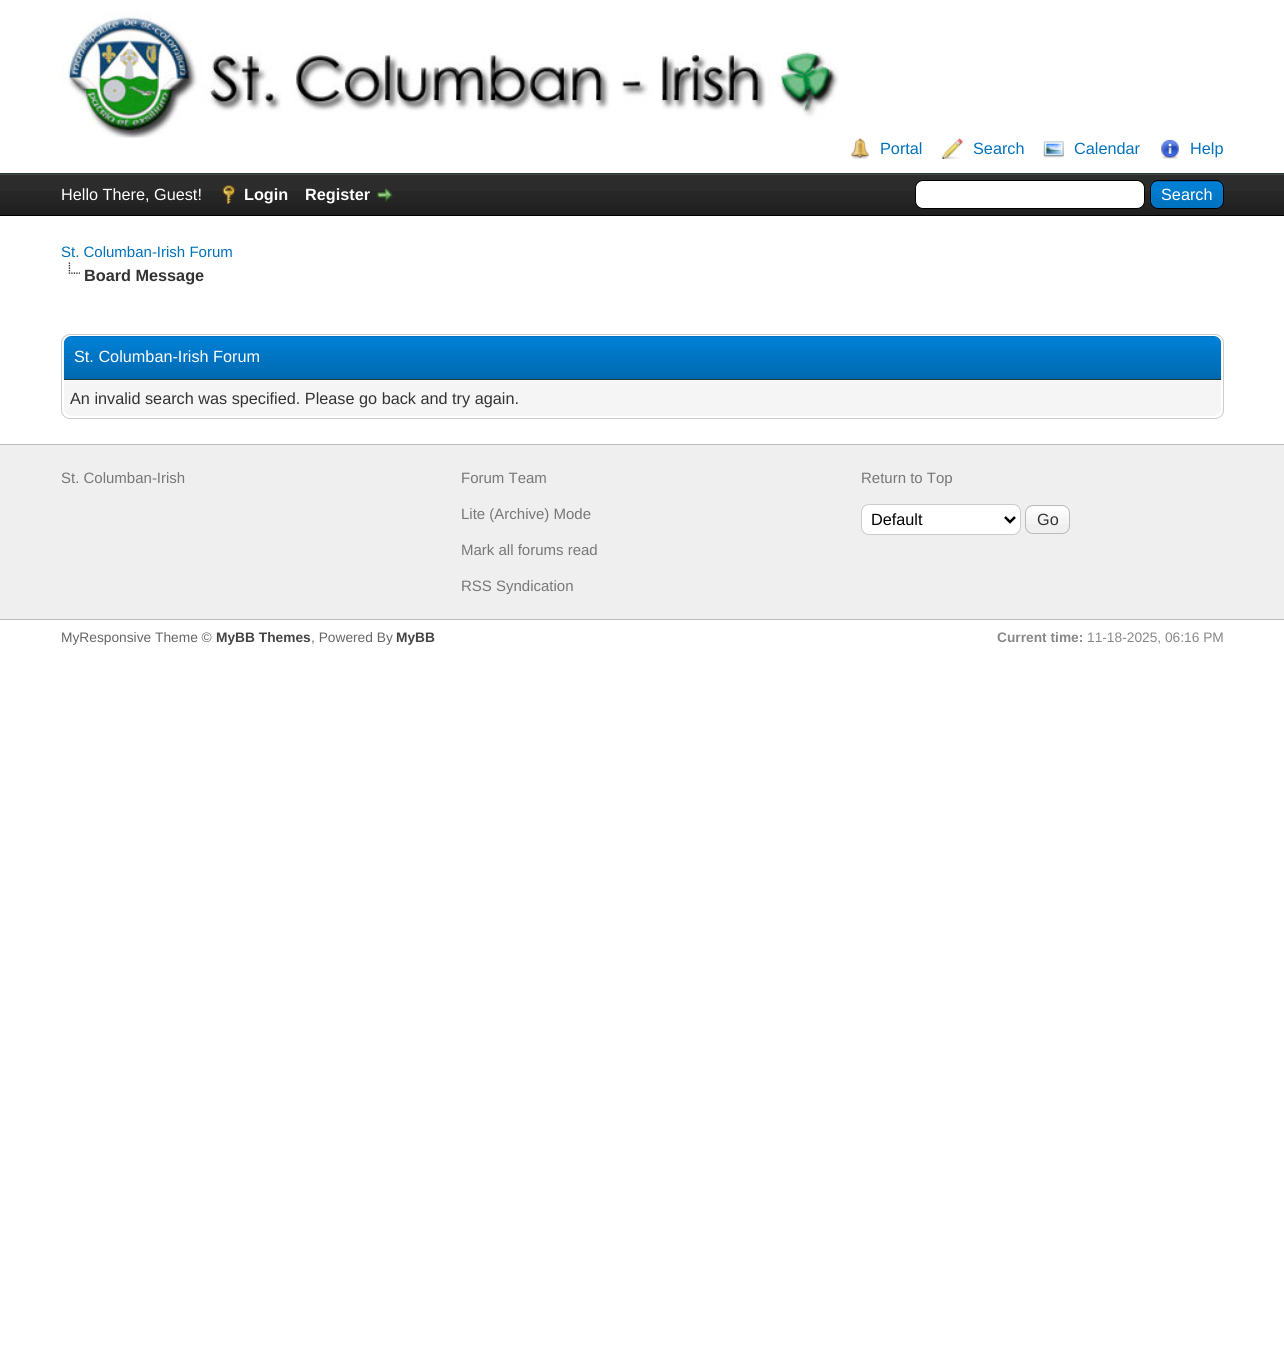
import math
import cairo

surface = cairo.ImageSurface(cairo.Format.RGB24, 1284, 1355)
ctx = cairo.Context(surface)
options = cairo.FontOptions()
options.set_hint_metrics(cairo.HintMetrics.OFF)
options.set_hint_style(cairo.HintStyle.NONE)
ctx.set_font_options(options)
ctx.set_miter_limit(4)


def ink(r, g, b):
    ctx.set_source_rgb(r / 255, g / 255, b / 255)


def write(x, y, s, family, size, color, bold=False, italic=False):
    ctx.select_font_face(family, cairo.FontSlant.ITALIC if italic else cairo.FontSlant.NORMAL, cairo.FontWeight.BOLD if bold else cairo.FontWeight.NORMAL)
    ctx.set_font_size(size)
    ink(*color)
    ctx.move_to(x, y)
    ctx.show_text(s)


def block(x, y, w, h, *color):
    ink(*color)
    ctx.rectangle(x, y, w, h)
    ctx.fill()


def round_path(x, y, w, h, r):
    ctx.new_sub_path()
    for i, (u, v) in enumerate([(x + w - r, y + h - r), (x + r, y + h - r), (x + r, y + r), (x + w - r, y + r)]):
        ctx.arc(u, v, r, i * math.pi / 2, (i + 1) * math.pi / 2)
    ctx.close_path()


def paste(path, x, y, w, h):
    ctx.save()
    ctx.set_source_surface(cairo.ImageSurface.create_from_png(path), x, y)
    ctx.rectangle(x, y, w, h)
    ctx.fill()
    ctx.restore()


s1 = dict(family="Liberation Sans", size=16.25, color=(0, 114, 188))
s2 = dict(family="Liberation Sans", size=16.25, color=(255, 255, 255))
s3 = dict(family="Liberation Sans", size=16.25, color=(255, 255, 255), bold=True)
s4 = dict(family="Liberation Sans", size=15, color=(0, 114, 188))
s5 = dict(family="Liberation Sans", size=16.25, color=(51, 51, 51), bold=True)
s6 = dict(family="Liberation Sans", size=16.25, color=(51, 51, 51))
s7 = dict(family="Liberation Sans", size=15, color=(119, 119, 119))
s8 = dict(family="Liberation Sans", size=16.25, color=(0, 0, 0))
s9 = dict(family="Liberation Sans", size=13.75, color=(102, 102, 102))
s10 = dict(family="Liberation Sans", size=13.75, color=(68, 68, 68), bold=True)
s11 = dict(family="Liberation Sans", size=13.75, color=(136, 136, 136), bold=True)
s12 = dict(family="Liberation Sans", size=13.75, color=(136, 136, 136))

ink(255, 255, 255)
ctx.paint()
block(0, 173, 1284, 1, 38, 60, 48)
paste("pic1.png", 61, 12, 778, 126)
paste("pic2.png", 851, 138, 18, 21)
write(880, 154, "Portal", **s1)
paste("pic3.png", 942, 138, 21, 21)
write(973, 154, "Search", **s1)
paste("pic4.png", 1043, 141, 21, 17)
write(1074, 154, "Calendar", **s1)
paste("pic5.png", 1161, 139, 18, 20)
write(1190, 154, "Help", **s1)
paste("pic6.png", 0, 175, 1284, 40)
block(0, 174, 1284, 1, 68, 68, 68)
block(0, 215, 1284, 1, 0, 0, 0)
write(61, 200, "Hello There, Guest!", **s2)
paste("pic7.png", 222, 185, 14, 19)
write(244, 200, "Login", **s3)
write(305, 200, "Register", **s3)
paste("pic8.png", 377, 188, 16, 14)
round_path(915.5, 180.5, 229, 28, 7.5)
ctx.fill_preserve()
ink(0, 0, 0)
ctx.set_line_width(1)
ctx.stroke()
paste("pic9.png", 1150, 181, 74, 28)
round_path(1150.5, 180.5, 73, 28, 7.5)
ctx.stroke()
write(1161, 200, "Search", **s2)
write(61, 257, "St. Columban-Irish Forum", **s4)
paste("pic10.png", 68, 262, 12, 12)
write(84, 281, "Board Message", **s5)
round_path(61.5, 334.5, 1162, 84, 8.5)
ink(204, 204, 204)
ctx.stroke()
ink(0, 102, 162)
ctx.new_path()
ctx.move_to(72, 336)
ctx.line_to(1213, 336)
ctx.curve_to(1217.5, 336, 1221, 339.5, 1221, 344)
ctx.line_to(1221, 380)
ctx.line_to(64, 380)
ctx.line_to(64, 344)
ctx.curve_to(64, 339.5, 67.5, 336, 72, 336)
ctx.close_path()
ctx.fill()
paste("pic11.png", 63, 336, 1159, 44)
block(64, 379, 1157, 1, 38, 60, 48)
write(74, 362, "St. Columban-Irish Forum", **s2)
ink(245, 245, 245)
ctx.new_path()
ctx.move_to(64, 380)
ctx.line_to(1221, 380)
ctx.line_to(1221, 408)
ctx.curve_to(1221, 412.5, 1217.5, 416, 1213, 416)
ctx.line_to(72, 416)
ctx.curve_to(67.5, 416, 64, 412.5, 64, 408)
ctx.close_path()
ctx.fill()
block(64, 380, 1157, 1, 255, 255, 255)
write(70, 404, "An invalid search was specified. Please go back and try again.", **s6)
block(0, 445, 1284, 174, 239, 239, 239)
block(0, 444, 1284, 1, 187, 187, 187)
block(0, 619, 1284, 1, 187, 187, 187)
write(61, 483, "St. Columban-Irish", **s7)
write(461, 483, "Forum Team", **s7)
write(461, 519, "Lite (Archive) Mode", **s7)
write(461, 555, "Mark all forums read", **s7)
write(461, 591, "RSS Syndication", **s7)
write(861, 483, "Return to Top", **s7)
ink(255, 255, 255)
round_path(861.5, 504.5, 159, 30, 7.5)
ctx.fill_preserve()
ink(204, 204, 204)
ctx.stroke()
ctx.new_path()
ctx.move_to(1005, 517)
ctx.line_to(1010, 522)
ctx.line_to(1015, 517)
ink(0, 0, 0)
ctx.set_line_width(2.5)
ctx.stroke()
write(871, 525, "Default", **s8)
paste("pic12.png", 1025, 506, 45, 18)
round_path(1025.5, 505.5, 44, 28, 7.5)
ink(187, 187, 187)
ctx.set_line_width(1)
ctx.stroke()
write(1037, 525, "Go", **s6)
write(61, 642, "MyResponsive Theme ©", **s9)
write(216, 642, "MyBB Themes", **s10)
write(311, 642, ", Powered By", **s9)
write(396, 642, "MyBB", **s10)
write(997, 642, "Current time:", **s11)
write(1087, 642, "11-18-2025, 06:16 PM", **s12)
surface.write_to_png("screenshot.png")
